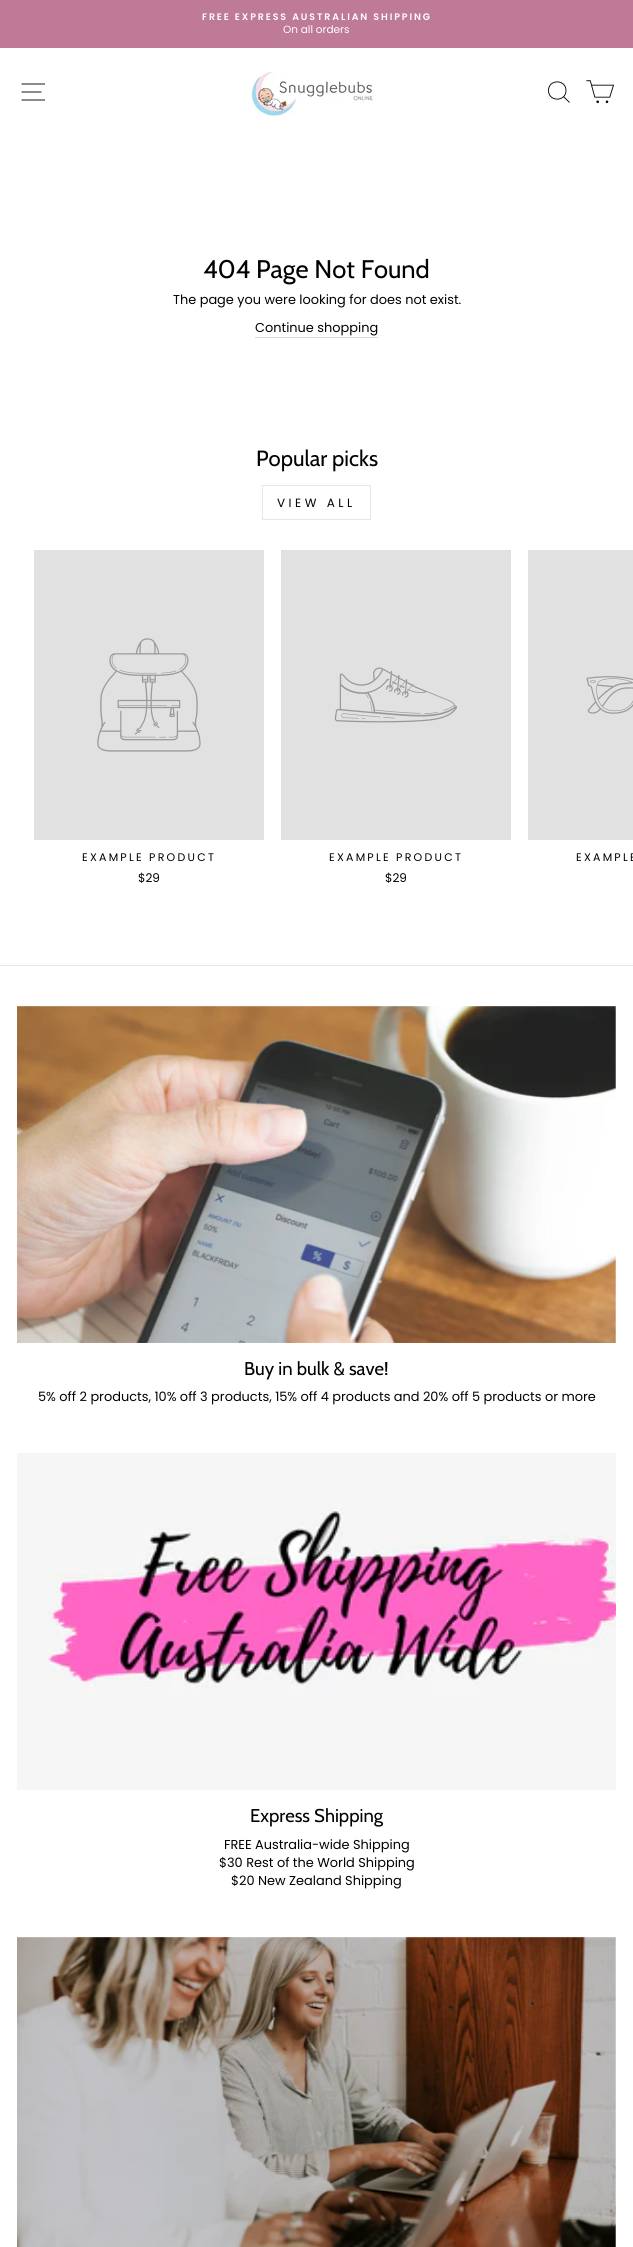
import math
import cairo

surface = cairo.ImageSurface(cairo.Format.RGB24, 633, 2247)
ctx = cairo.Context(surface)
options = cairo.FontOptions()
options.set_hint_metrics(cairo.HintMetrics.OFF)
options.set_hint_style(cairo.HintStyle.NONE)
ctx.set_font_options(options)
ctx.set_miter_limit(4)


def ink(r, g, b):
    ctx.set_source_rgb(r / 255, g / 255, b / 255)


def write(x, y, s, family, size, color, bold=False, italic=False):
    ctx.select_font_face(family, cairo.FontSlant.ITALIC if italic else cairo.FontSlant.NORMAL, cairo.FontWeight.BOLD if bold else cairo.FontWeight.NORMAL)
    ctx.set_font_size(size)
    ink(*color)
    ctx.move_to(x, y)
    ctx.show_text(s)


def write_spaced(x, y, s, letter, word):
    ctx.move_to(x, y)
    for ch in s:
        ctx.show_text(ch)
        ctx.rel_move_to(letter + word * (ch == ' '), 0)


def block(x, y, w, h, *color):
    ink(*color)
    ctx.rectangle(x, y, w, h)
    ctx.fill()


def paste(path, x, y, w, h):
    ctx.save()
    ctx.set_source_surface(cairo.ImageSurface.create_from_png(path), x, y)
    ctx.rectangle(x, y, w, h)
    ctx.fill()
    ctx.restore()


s1 = dict(family="Poppins", size=10.5, color=(255, 255, 255))
s2 = dict(family="Cabin", size=25.5, color=(0, 0, 0))
s3 = dict(family="Poppins", size=12.9, color=(0, 0, 0))
s4 = dict(family="Cabin", size=22, color=(0, 0, 0))
s5 = dict(family="Poppins", size=12, color=(0, 0, 0))
s6 = dict(family="Cabin", size=18.5, color=(0, 0, 0))

ink(255, 255, 255)
ctx.paint()
block(0, 0, 633, 48, 190, 122, 150)
ctx.select_font_face("Poppins SemiBold")
ctx.set_font_size(9.45)
ink(255, 255, 255)
write_spaced(202, 20, "FREE EXPRESS AUSTRALIAN SHIPPING", 1.9, 0)
write(283, 33, "On all orders", **s1)
ctx.new_path()
ctx.move_to(21.5, 84)
ctx.line_to(45, 84)
ctx.move_to(21.5, 92)
ctx.line_to(41.5, 92)
ctx.move_to(21.5, 100)
ctx.line_to(45, 100)
ink(0, 0, 0)
ctx.set_line_width(0.9)
ctx.stroke()
paste("pic1.png", 251, 72, 122, 44)
ctx.new_path()
ctx.move_to(566, 90.5)
ctx.curve_to(566, 102, 548.5, 102, 548.5, 90.5)
ctx.curve_to(548.5, 79, 566, 79, 566, 90.5)
ctx.close_path()
ctx.move_to(569.5, 102.5)
ctx.line_to(563.5, 96.5)
ctx.stroke()
paste("pic2.png", 586, 80, 28, 24)
write(203, 278, "404 Page Not Found", **s2)
write(173, 304, "The page you were looking for does not exist.", **s3)
block(255, 337, 123, 1, 217, 217, 217)
write(255, 332, "Continue shopping", **s3)
write(256, 466, "Popular picks", **s4)
ctx.rectangle(262.5, 485.5, 108, 34)
ink(232, 232, 225)
ctx.set_line_width(1)
ctx.stroke()
ctx.select_font_face("Poppins")
ctx.set_font_size(12)
ink(0, 0, 0)
write_spaced(277, 507, "VIEW ALL", 3.5, 0)
block(34, 550, 230, 290, 225, 225, 225)
paste("pic3.png", 97, 638, 104, 114)
ctx.set_font_size(11)
ink(0, 0, 0)
write_spaced(82, 861, "EXAMPLE PRODUCT", 2.25, 0)
write(138, 882, "$29", **s5)
block(281, 550, 230, 290, 225, 225, 225)
paste("pic4.png", 334, 667, 123, 56)
ctx.set_font_size(11)
ink(0, 0, 0)
write_spaced(329, 861, "EXAMPLE PRODUCT", 2.25, 0)
write(385, 882, "$29", **s5)
block(528, 550, 105, 290, 225, 225, 225)
paste("pic5.png", 586, 676, 47, 38)
ctx.set_font_size(11)
ink(0, 0, 0)
write_spaced(576, 861, "EXAMPLE", 2.25, 0)
block(0, 965, 633, 1, 232, 232, 225)
paste("pic6.png", 17, 1006, 599, 337)
write(244, 1375, "Buy in bulk & save!", **s6)
write(38, 1401, "5% off 2 products, 10% off 3 products, 15% off 4 products and 20% off 5 products or more", **s3)
paste("pic7.png", 17, 1453, 599, 337)
write(250, 1822, "Express Shipping", **s6)
write(224, 1849, "FREE Australia-wide Shipping", **s3)
write(219, 1867, "$30 Rest of the World Shipping", **s3)
write(231, 1885, "$20 New Zealand Shipping", **s3)
paste("pic8.png", 17, 1937, 599, 310)
surface.write_to_png("screenshot.png")
